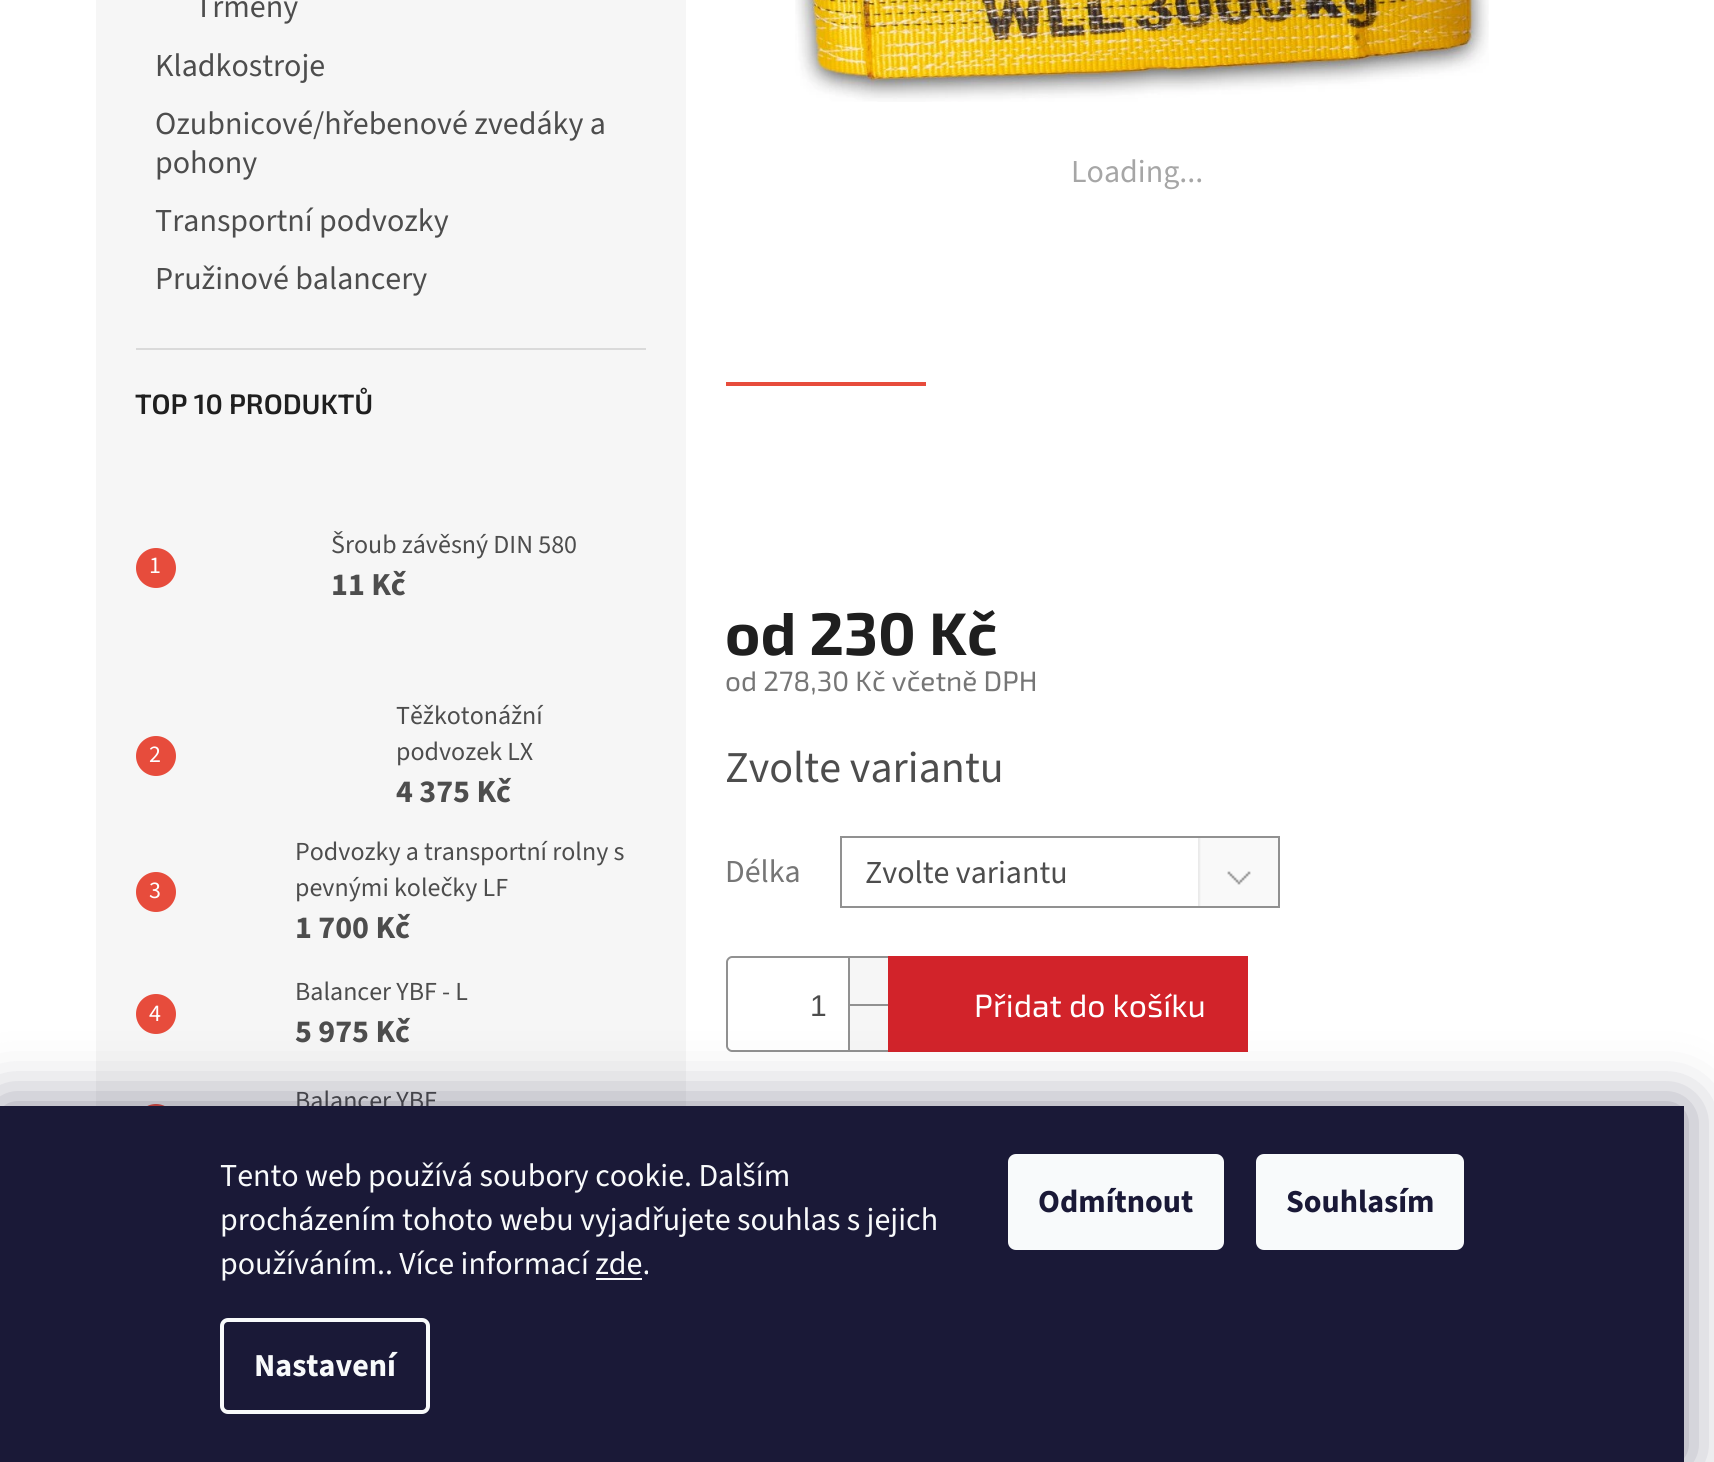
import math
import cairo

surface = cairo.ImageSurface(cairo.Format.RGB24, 1714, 1462)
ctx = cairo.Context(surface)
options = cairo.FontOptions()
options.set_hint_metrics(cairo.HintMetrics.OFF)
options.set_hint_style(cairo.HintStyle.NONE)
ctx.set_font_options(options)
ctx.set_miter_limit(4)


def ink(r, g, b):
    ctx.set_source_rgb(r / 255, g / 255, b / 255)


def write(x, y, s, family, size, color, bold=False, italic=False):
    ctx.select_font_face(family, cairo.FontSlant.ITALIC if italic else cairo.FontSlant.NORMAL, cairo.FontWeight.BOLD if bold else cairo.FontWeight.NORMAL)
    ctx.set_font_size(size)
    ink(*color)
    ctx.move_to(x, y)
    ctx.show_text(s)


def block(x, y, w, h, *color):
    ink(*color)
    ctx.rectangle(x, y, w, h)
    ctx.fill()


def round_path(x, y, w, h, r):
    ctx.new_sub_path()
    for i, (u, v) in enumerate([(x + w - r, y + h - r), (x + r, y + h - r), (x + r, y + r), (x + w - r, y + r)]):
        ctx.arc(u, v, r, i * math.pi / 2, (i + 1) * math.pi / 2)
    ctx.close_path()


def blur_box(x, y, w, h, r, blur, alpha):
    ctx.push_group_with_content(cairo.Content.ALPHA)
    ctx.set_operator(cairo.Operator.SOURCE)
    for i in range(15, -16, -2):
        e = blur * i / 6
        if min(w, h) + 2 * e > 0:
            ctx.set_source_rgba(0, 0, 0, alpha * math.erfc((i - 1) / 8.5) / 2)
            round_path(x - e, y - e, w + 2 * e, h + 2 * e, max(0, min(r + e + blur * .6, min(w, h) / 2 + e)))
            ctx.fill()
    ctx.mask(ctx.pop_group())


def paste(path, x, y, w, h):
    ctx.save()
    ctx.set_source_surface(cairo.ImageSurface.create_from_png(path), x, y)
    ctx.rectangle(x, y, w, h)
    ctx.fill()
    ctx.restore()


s1 = dict(family="Source Sans 3", size=32, color=(77, 77, 77))
s2 = dict(family="Exo 2 SemiBold", size=28, color=(31, 31, 31))
s3 = dict(family="Source Sans 3", size=24, color=(255, 255, 255))
s4 = dict(family="Source Sans 3", size=26, color=(77, 77, 77))
s5 = dict(family="Source Sans 3", size=32, color=(77, 77, 77), bold=True)
s6 = dict(family="Source Sans 3", size=32, color=(166, 166, 166))
s7 = dict(family="Exo 2", size=60, color=(31, 31, 31), bold=True)
s8 = dict(family="Exo 2", size=28, color=(118, 118, 118))
s9 = dict(family="Source Sans 3", size=44, color=(77, 77, 77))
s10 = dict(family="Source Sans 3", size=32, color=(118, 118, 118))
s11 = dict(family="Liberation Sans", size=30, color=(77, 77, 77))
s12 = dict(family="Exo 2", size=32, color=(255, 255, 255))
s13 = dict(family="Source Sans 3", size=32, color=(248, 250, 251))
s14 = dict(family="Source Sans 3", size=32, color=(248, 250, 251), bold=True)
s15 = dict(family="Source Sans 3", size=32, color=(26, 25, 55), bold=True)

ink(255, 255, 255)
ctx.paint()
block(96, 0, 590, 1106, 246, 246, 246)
block(136, 348, 510, 2, 218, 218, 218)
write(195, 17, "Třmeny", **s1)
write(155, 76, "Kladkostroje", **s1)
write(155, 134, "Ozubnicové/hřebenové zvedáky a", **s1)
write(155, 173, "pohony", **s1)
write(155, 231, "Transportní podvozky", **s1)
write(155, 289, "Pružinové balancery", **s1)
write(135, 414, "TOP 10 PRODUKTŮ", **s2)
ink(231, 76, 60)
ctx.new_path()
ctx.arc(156, 568, 20, 0, 2 * math.pi)
ctx.fill()
write(149, 573, "1", **s3)
write(331, 553, "Šroub závěsný DIN 580", **s4)
write(331, 595, "11 Kč", **s5)
ink(231, 76, 60)
ctx.new_path()
ctx.arc(156, 756, 20, 0, 2 * math.pi)
ctx.fill()
write(149, 762, "2", **s3)
write(396, 724, "Těžkotonážní", **s4)
write(396, 760, "podvozek LX", **s4)
write(396, 802, "4 375 Kč", **s5)
ink(231, 76, 60)
ctx.new_path()
ctx.arc(156, 892, 20, 0, 2 * math.pi)
ctx.fill()
write(149, 898, "3", **s3)
write(295, 860, "Podvozky a transportní rolny s", **s4)
write(295, 896, "pevnými kolečky LF", **s4)
write(295, 938, "1 700 Kč", **s5)
ink(231, 76, 60)
ctx.new_path()
ctx.arc(156, 1014, 20, 0, 2 * math.pi)
ctx.fill()
write(149, 1021, "4", **s3)
write(295, 1000, "Balancer YBF - L", **s4)
write(295, 1042, "5 975 Kč", **s5)
write(295, 1109, "Balancer YBF", **s4)
ink(231, 76, 60)
ctx.new_path()
ctx.arc(156, 1124, 20, 0, 2 * math.pi)
ctx.fill()
paste("pic1.png", 795, 0, 694, 102)
write(1071, 182, "Loading...", **s6)
block(726, 382, 200, 4, 231, 76, 60)
write(725, 655, "od 230 Kč", **s7)
write(725, 691, "od 278,30 Kč včetně DPH", **s8)
write(725, 782, "Zvolte variantu", **s9)
write(725, 882, "Délka", **s10)
paste("pic2.png", 1198, 838, 80, 68)
ctx.rectangle(841, 837, 438, 70)
ink(145, 145, 145)
ctx.stroke()
write(865, 883, "Zvolte variantu", **s1)
ink(145, 145, 145)
ctx.set_fill_rule(cairo.FillRule.EVEN_ODD)
ctx.new_path()
ctx.move_to(732, 956)
ctx.line_to(888, 956)
ctx.line_to(888, 1052)
ctx.line_to(732, 1052)
ctx.curve_to(729, 1052, 726, 1049, 726, 1046)
ctx.line_to(726, 962)
ctx.curve_to(726, 959, 729, 956, 732, 956)
ctx.close_path()
ctx.move_to(732, 958)
ctx.line_to(888, 958)
ctx.line_to(888, 1050)
ctx.line_to(732, 1050)
ctx.curve_to(730, 1050, 728, 1048, 728, 1046)
ctx.line_to(728, 962)
ctx.curve_to(728, 960, 730, 958, 732, 958)
ctx.close_path()
ctx.fill()
write(810, 1016, "1", **s11)
block(850, 958, 38, 46, 246, 246, 246)
block(848, 958, 2, 46, 145, 145, 145)
block(850, 1006, 38, 44, 246, 246, 246)
block(848, 1004, 40, 2, 145, 145, 145)
block(848, 1004, 2, 46, 145, 145, 145)
block(888, 956, 360, 96, 210, 35, 42)
write(974, 1017, "Přidat do košíku", **s12)
ink(27, 25, 57)
blur_box(0, 1106, 1684, 356, 0, 30, 0.5)
block(0, 1106, 1684, 356, 26, 25, 55)
write(220, 1186, "Tento web používá soubory cookie. Dalším", **s13)
write(220, 1230, "procházením tohoto webu vyjadřujete souhlas s jejich", **s13)
write(220, 1274, "používáním.. Více informací zde.", **s13)
block(596, 1278, 46, 2, 248, 250, 251)
round_path(222, 1320, 206, 92, 6)
ctx.set_line_width(4)
ctx.stroke()
write(254, 1376, "Nastavení", **s14)
round_path(1008, 1154, 216, 96, 8)
ctx.fill()
write(1038, 1212, "Odmítnout", **s15)
ink(248, 250, 251)
round_path(1256, 1154, 208, 96, 8)
ctx.fill()
write(1286, 1212, "Souhlasím", **s15)
surface.write_to_png("screenshot.png")
